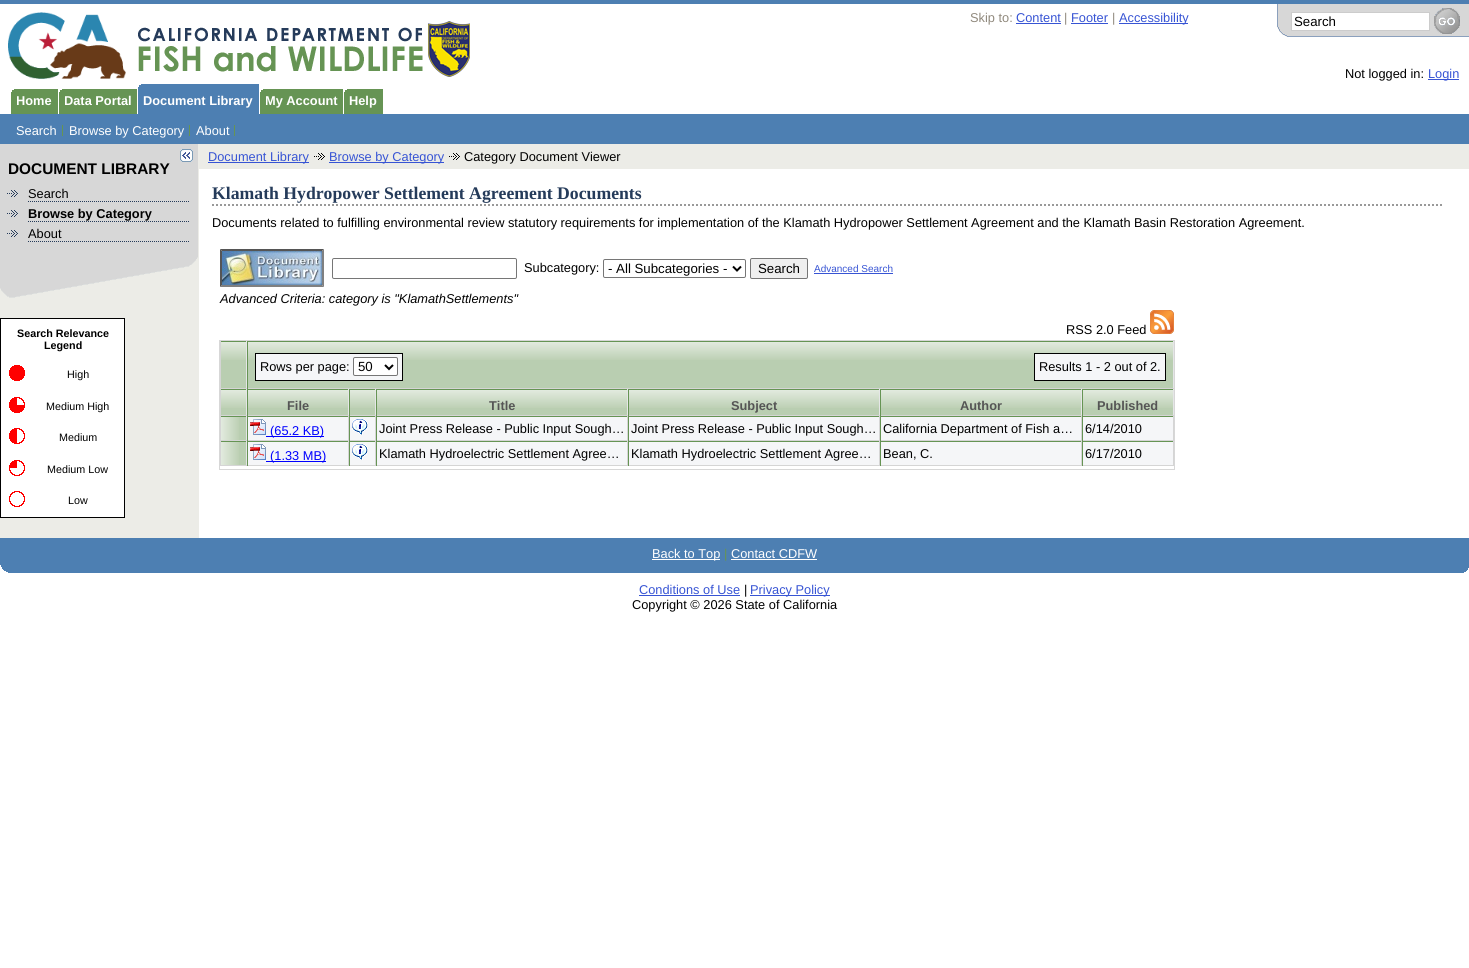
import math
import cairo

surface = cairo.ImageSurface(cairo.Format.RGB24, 1469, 968)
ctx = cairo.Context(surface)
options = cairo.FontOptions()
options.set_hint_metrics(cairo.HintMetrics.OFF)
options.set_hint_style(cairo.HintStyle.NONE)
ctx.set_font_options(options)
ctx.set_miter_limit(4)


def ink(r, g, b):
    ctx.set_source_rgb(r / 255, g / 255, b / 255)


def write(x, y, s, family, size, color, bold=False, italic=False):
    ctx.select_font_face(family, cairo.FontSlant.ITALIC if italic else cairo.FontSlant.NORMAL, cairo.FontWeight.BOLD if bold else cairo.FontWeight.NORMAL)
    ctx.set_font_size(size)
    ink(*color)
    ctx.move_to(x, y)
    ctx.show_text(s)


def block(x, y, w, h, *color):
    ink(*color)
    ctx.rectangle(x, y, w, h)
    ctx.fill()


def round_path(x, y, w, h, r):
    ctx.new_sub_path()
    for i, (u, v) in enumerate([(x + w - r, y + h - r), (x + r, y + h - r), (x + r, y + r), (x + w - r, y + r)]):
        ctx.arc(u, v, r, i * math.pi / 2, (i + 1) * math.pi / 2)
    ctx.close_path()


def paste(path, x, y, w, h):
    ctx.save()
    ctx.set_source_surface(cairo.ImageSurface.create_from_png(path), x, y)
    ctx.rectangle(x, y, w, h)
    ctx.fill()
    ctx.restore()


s1 = dict(family="Liberation Sans", size=12.8, color=(144, 137, 125))
s2 = dict(family="Liberation Sans", size=12.8, color=(55, 84, 212))
s3 = dict(family="Liberation Sans", size=13.25, color=(0, 0, 0))
s4 = dict(family="Liberation Sans", size=12.8, color=(0, 0, 0))
s5 = dict(family="Liberation Sans", size=12.8, color=(255, 255, 255), bold=True)
s6 = dict(family="Liberation Sans", size=12.8, color=(255, 255, 255))
s7 = dict(family="Liberation Sans", size=15.4, color=(0, 0, 0), bold=True)
s8 = dict(family="Liberation Sans", size=12.8, color=(0, 0, 0), bold=True)
s9 = dict(family="Liberation Sans", size=10.75, color=(0, 0, 0), bold=True)
s10 = dict(family="Liberation Sans", size=10.75, color=(0, 0, 0))
s11 = dict(family="Liberation Serif", size=17.7, color=(37, 59, 90), bold=True)
s12 = dict(family="Liberation Sans", size=10, color=(55, 84, 212))
s13 = dict(family="Liberation Sans", size=12.8, color=(0, 0, 0), italic=True)
s14 = dict(family="Liberation Sans", size=12.8, color=(85, 85, 85), bold=True)
s15 = dict(family="Liberation Sans", size=12.8, color=(0, 0, 255))
s16 = dict(family="Liberation Sans", size=12.8, color=(102, 148, 84))

ink(255, 255, 255)
ctx.paint()
block(0, 0, 1469, 4, 77, 127, 178)
paste("pic1.png", 8, 12, 118, 67)
write(970, 22, "Skip to:", **s1)
write(1016, 22, "Content", **s2)
block(1016, 23, 45, 1, 55, 84, 212)
write(1064, 22, "|", **s1)
write(1071, 22, "Footer", **s2)
block(1071, 23, 37, 1, 55, 84, 212)
write(1112, 22, "|", **s1)
block(1119, 23, 69, 1, 55, 84, 212)
write(1119, 22, "Accessibility", **s2)
paste("pic2.png", 1277, 4, 192, 33)
ink(255, 255, 255)
ctx.rectangle(1291.5, 12.5, 138, 18)
ctx.fill_preserve()
ink(204, 204, 204)
ctx.set_line_width(1)
ctx.stroke()
write(1294, 26, "Search", **s3)
paste("pic3.png", 1434, 8, 26, 26)
paste("pic4.png", 138, 21, 332, 56)
write(1345, 78, "Not logged in:", **s4)
block(1428, 79, 31, 1, 55, 84, 212)
write(1428, 78, "Login", **s2)
block(0, 114, 1469, 30, 77, 127, 178)
block(141, 84, 118, 30, 77, 127, 178)
paste("pic5.png", 137, 84, 4, 30)
write(143, 105, "Document Library", **s5)
block(62, 125, 1, 11, 102, 148, 84)
write(16, 135, "Search", **s6)
block(189, 125, 1, 11, 102, 148, 84)
write(69, 135, "Browse by Category", **s6)
block(234, 125, 1, 11, 102, 148, 84)
write(196, 135, "About", **s6)
block(17, 89, 41, 25, 102, 148, 84)
write(16, 105, "Home", **s5)
paste("pic6.png", 10, 89, 7, 25)
block(65, 89, 72, 25, 102, 148, 84)
write(64, 105, "Data Portal", **s5)
paste("pic6.png", 58, 89, 7, 25)
block(266, 89, 77, 25, 102, 148, 84)
write(265, 105, "My Account", **s5)
paste("pic6.png", 259, 89, 7, 25)
block(347, 89, 36, 25, 102, 148, 84)
paste("pic7.png", 343, 89, 4, 25)
write(349, 105, "Help", **s5)
block(0, 169, 199, 369, 236, 236, 231)
block(0, 144, 198, 113, 215, 215, 215)
paste("pic8.png", 180, 149, 13, 13)
paste("pic9.png", 0, 257, 198, 41)
write(8, 174, "DOCUMENT LIBRARY", **s7)
paste("pic10.png", 7, 190, 11, 7)
ctx.new_path()
ctx.move_to(28, 201.5)
ctx.line_to(190, 201.5)
ink(37, 59, 90)
ctx.set_dash([1, 1])
ctx.stroke()
write(28, 198, "Search", **s4)
paste("pic10.png", 7, 210, 11, 7)
ctx.new_path()
ctx.move_to(28, 221.5)
ctx.line_to(190, 221.5)
ink(37, 59, 90)
ctx.stroke()
write(28, 218, "Browse by Category", **s8)
paste("pic10.png", 7, 230, 11, 7)
ctx.new_path()
ctx.move_to(28, 241.5)
ctx.line_to(190, 241.5)
ink(37, 59, 90)
ctx.stroke()
write(28, 238, "About", **s4)
ink(255, 255, 255)
ctx.rectangle(0.5, 318.5, 124, 199)
ctx.fill_preserve()
ink(0, 0, 0)
ctx.set_dash([])
ctx.stroke()
write(17, 337, "Search Relevance", **s9)
write(44, 349, "Legend", **s9)
paste("pic11.png", 9, 365, 16, 16)
write(67, 378, "High", **s10)
paste("pic12.png", 9, 397, 16, 16)
write(46, 410, "Medium High", **s10)
paste("pic13.png", 9, 428, 16, 16)
write(59, 441, "Medium", **s10)
paste("pic14.png", 9, 460, 16, 16)
write(47, 473, "Medium Low", **s10)
paste("pic15.png", 9, 491, 16, 16)
write(68, 504, "Low", **s10)
block(198, 144, 1271, 25, 236, 236, 231)
block(208, 162, 101, 1, 55, 84, 212)
write(208, 161, "Document Library", **s2)
paste("pic16.png", 314, 153, 11, 7)
block(329, 162, 115, 1, 55, 84, 212)
write(329, 161, "Browse by Category", **s2)
paste("pic16.png", 449, 153, 11, 7)
write(464, 161, "Category Document Viewer", **s4)
ctx.new_path()
ctx.move_to(212, 205)
ctx.line_to(1443, 205)
ink(153, 153, 153)
ctx.set_line_width(2)
ctx.set_dash([2, 2])
ctx.stroke()
write(212, 199, "Klamath Hydropower Settlement Agreement Documents", **s11)
write(212, 227, "Documents related to fulfilling environmental review statutory requirements for implementation of the Klamath Hydropower Settlement Agreement and the Klamath Basin Restoration Agreement.", **s4)
ink(85, 85, 85)
ctx.new_path()
ctx.move_to(220, 249)
ctx.line_to(324, 249)
ctx.line_to(322, 251)
ctx.line_to(222, 251)
ctx.close_path()
ctx.fill()
ink(128, 128, 128)
ctx.new_path()
ctx.move_to(324, 249)
ctx.line_to(324, 287)
ctx.line_to(322, 285)
ctx.line_to(322, 251)
ctx.close_path()
ctx.fill()
ctx.new_path()
ctx.move_to(324, 287)
ctx.line_to(220, 287)
ctx.line_to(222, 285)
ctx.line_to(322, 285)
ctx.close_path()
ctx.fill()
ink(85, 85, 85)
ctx.new_path()
ctx.move_to(220, 287)
ctx.line_to(220, 249)
ctx.line_to(222, 251)
ctx.line_to(222, 285)
ctx.close_path()
ctx.fill()
paste("pic17.png", 222, 251, 100, 34)
round_path(332.5, 258.5, 184, 20, 1.5)
ink(118, 118, 118)
ctx.set_line_width(1)
ctx.set_dash([])
ctx.stroke()
write(524, 272, "Subcategory:", **s4)
round_path(603.5, 259.5, 142, 18, 1.5)
ink(118, 118, 118)
ctx.stroke()
ctx.new_path()
ctx.move_to(733, 266.5)
ctx.line_to(737, 270.5)
ctx.line_to(741, 266.5)
ink(0, 0, 0)
ctx.set_line_width(2)
ctx.stroke()
write(608, 273, "- All Subcategories -", **s3)
ink(239, 239, 239)
round_path(750.5, 258.5, 57, 20, 1.5)
ctx.fill_preserve()
ink(118, 118, 118)
ctx.set_line_width(1)
ctx.stroke()
write(758, 273, "Search", **s3)
write(814, 272, "Advanced Search", **s12)
block(814, 273, 79, 1, 55, 84, 212)
write(220, 303, "Advanced Criteria: category is \"KlamathSettlements\"", **s13)
write(1066, 334, "RSS 2.0 Feed", **s4)
paste("pic18.png", 1150, 310, 24, 24)
ctx.rectangle(219.5, 340.5, 955, 129)
ink(215, 215, 215)
ctx.stroke()
block(221, 360, 25, 28, 185, 206, 177)
paste("pic19.png", 221, 342, 25, 18)
block(220, 341, 954, 1, 102, 148, 84)
block(246, 341, 1, 48, 229, 230, 231)
block(220, 388, 27, 1, 213, 213, 213)
block(220, 341, 1, 48, 213, 213, 213)
block(248, 360, 925, 28, 185, 206, 177)
paste("pic20.png", 248, 342, 925, 18)
block(1173, 341, 1, 48, 229, 230, 231)
block(247, 388, 927, 1, 213, 213, 213)
block(247, 341, 1, 48, 102, 148, 84)
ink(245, 246, 248)
ctx.rectangle(255.5, 353.5, 147, 27)
ctx.fill_preserve()
ink(0, 0, 0)
ctx.stroke()
write(260, 371, "Rows per page:", **s4)
ink(255, 255, 255)
round_path(353.5, 357.5, 44, 18, 1.5)
ctx.fill_preserve()
ink(118, 118, 118)
ctx.stroke()
ctx.new_path()
ctx.move_to(385, 365)
ctx.line_to(389, 369)
ctx.line_to(393, 365)
ink(0, 0, 0)
ctx.set_line_width(2)
ctx.stroke()
write(358, 371, "50", **s3)
ink(245, 246, 248)
ctx.rectangle(1034.5, 353.5, 131, 27)
ctx.fill_preserve()
ink(0, 0, 0)
ctx.set_line_width(1)
ctx.stroke()
write(1039, 371, "Results 1 - 2 out of 2.", **s4)
block(221, 408, 25, 7, 185, 206, 177)
paste("pic19.png", 221, 390, 25, 18)
block(220, 389, 954, 1, 102, 148, 84)
block(246, 389, 1, 27, 229, 230, 231)
block(220, 415, 27, 1, 213, 213, 213)
block(220, 389, 1, 27, 213, 213, 213)
block(248, 408, 100, 7, 185, 206, 177)
paste("pic21.png", 248, 390, 100, 18)
block(348, 389, 1, 27, 229, 230, 231)
block(247, 415, 102, 1, 213, 213, 213)
block(247, 389, 1, 27, 102, 148, 84)
write(287, 410, "File", **s14)
block(350, 408, 25, 7, 185, 206, 177)
paste("pic19.png", 350, 390, 25, 18)
block(375, 389, 1, 27, 229, 230, 231)
block(349, 415, 27, 1, 213, 213, 213)
block(349, 389, 1, 27, 102, 148, 84)
block(377, 408, 250, 7, 185, 206, 177)
paste("pic22.png", 377, 390, 250, 18)
block(627, 389, 1, 27, 229, 230, 231)
block(376, 415, 252, 1, 213, 213, 213)
block(376, 389, 1, 27, 102, 148, 84)
write(489, 410, "Title", **s14)
block(629, 408, 250, 7, 185, 206, 177)
paste("pic22.png", 629, 390, 250, 18)
block(879, 389, 1, 27, 229, 230, 231)
block(628, 415, 252, 1, 213, 213, 213)
block(628, 389, 1, 27, 102, 148, 84)
write(731, 410, "Subject", **s14)
block(881, 408, 200, 7, 185, 206, 177)
paste("pic23.png", 881, 390, 200, 18)
block(1081, 389, 1, 27, 229, 230, 231)
block(880, 415, 202, 1, 213, 213, 213)
block(880, 389, 1, 27, 102, 148, 84)
write(960, 410, "Author", **s14)
block(1083, 408, 90, 7, 185, 206, 177)
paste("pic24.png", 1083, 390, 90, 18)
block(1173, 389, 1, 27, 229, 230, 231)
block(1082, 415, 92, 1, 213, 213, 213)
block(1082, 389, 1, 27, 102, 148, 84)
write(1097, 410, "Published", **s14)
block(239, 417, 7, 23, 185, 206, 177)
paste("pic25.png", 221, 417, 18, 23)
block(220, 416, 954, 1, 102, 148, 84)
block(246, 416, 1, 25, 229, 230, 231)
block(220, 440, 27, 1, 213, 213, 213)
block(220, 416, 1, 25, 213, 213, 213)
block(248, 417, 100, 23, 245, 246, 248)
block(348, 416, 1, 25, 213, 213, 213)
block(247, 440, 102, 1, 213, 213, 213)
block(247, 416, 1, 25, 102, 148, 84)
paste("pic26.png", 250, 419, 16, 16)
block(266, 436, 58, 1, 0, 0, 255)
write(270, 435, "(65.2 KB)", **s15)
block(350, 417, 25, 23, 245, 246, 248)
block(375, 416, 1, 25, 213, 213, 213)
block(349, 440, 27, 1, 213, 213, 213)
block(349, 416, 1, 25, 102, 148, 84)
paste("pic27.png", 352, 419, 16, 16)
block(377, 417, 250, 23, 245, 246, 248)
block(627, 416, 1, 25, 213, 213, 213)
block(376, 440, 252, 1, 213, 213, 213)
block(376, 416, 1, 25, 102, 148, 84)
write(379, 433, "Joint Press Release - Public Input Sough…", **s4)
block(629, 417, 250, 23, 245, 246, 248)
block(879, 416, 1, 25, 213, 213, 213)
block(628, 440, 252, 1, 213, 213, 213)
block(628, 416, 1, 25, 102, 148, 84)
write(631, 433, "Joint Press Release - Public Input Sough…", **s4)
block(881, 417, 200, 23, 245, 246, 248)
block(1081, 416, 1, 25, 213, 213, 213)
block(880, 440, 202, 1, 213, 213, 213)
block(880, 416, 1, 25, 102, 148, 84)
write(883, 433, "California Department of Fish a…", **s4)
block(1083, 417, 90, 23, 245, 246, 248)
block(1173, 416, 1, 25, 213, 213, 213)
block(1082, 440, 92, 1, 213, 213, 213)
block(1082, 416, 1, 25, 102, 148, 84)
write(1085, 433, "6/14/2010", **s4)
block(239, 442, 7, 23, 185, 206, 177)
paste("pic25.png", 221, 442, 18, 23)
block(220, 441, 954, 1, 102, 148, 84)
block(246, 441, 1, 25, 229, 230, 231)
block(220, 465, 27, 1, 213, 213, 213)
block(220, 441, 1, 25, 213, 213, 213)
block(248, 442, 100, 23, 245, 246, 248)
block(348, 441, 1, 25, 213, 213, 213)
block(247, 465, 102, 1, 213, 213, 213)
block(247, 441, 1, 25, 102, 148, 84)
paste("pic26.png", 250, 444, 16, 16)
block(266, 461, 60, 1, 0, 0, 255)
write(270, 460, "(1.33 MB)", **s15)
block(350, 442, 25, 23, 245, 246, 248)
block(375, 441, 1, 25, 213, 213, 213)
block(349, 465, 27, 1, 213, 213, 213)
block(349, 441, 1, 25, 102, 148, 84)
paste("pic27.png", 352, 444, 16, 16)
block(377, 442, 250, 23, 245, 246, 248)
block(627, 441, 1, 25, 213, 213, 213)
block(376, 465, 252, 1, 213, 213, 213)
block(376, 441, 1, 25, 102, 148, 84)
write(379, 458, "Klamath Hydroelectric Settlement Agree…", **s4)
block(629, 442, 250, 23, 245, 246, 248)
block(879, 441, 1, 25, 213, 213, 213)
block(628, 465, 252, 1, 213, 213, 213)
block(628, 441, 1, 25, 102, 148, 84)
write(631, 458, "Klamath Hydroelectric Settlement Agree…", **s4)
block(881, 442, 200, 23, 245, 246, 248)
block(1081, 441, 1, 25, 213, 213, 213)
block(880, 465, 202, 1, 213, 213, 213)
block(880, 441, 1, 25, 102, 148, 84)
write(883, 458, "Bean, C.", **s4)
block(1083, 442, 90, 23, 245, 246, 248)
block(1173, 441, 1, 25, 213, 213, 213)
block(1082, 465, 92, 1, 213, 213, 213)
block(1082, 441, 1, 25, 102, 148, 84)
write(1085, 458, "6/17/2010", **s4)
block(0, 538, 1469, 35, 77, 127, 178)
paste("pic28.png", 0, 565, 8, 8)
block(652, 559, 68, 1, 255, 255, 255)
write(652, 558, "Back to Top", **s6)
write(724, 558, "|", **s16)
write(731, 558, "Contact CDFW", **s6)
block(731, 559, 86, 1, 255, 255, 255)
paste("pic29.png", 1464, 568, 5, 5)
write(639, 594, "Conditions of Use", **s2)
block(639, 595, 101, 1, 55, 84, 212)
write(744, 594, "|", **s4)
block(750, 595, 80, 1, 55, 84, 212)
write(750, 594, "Privacy Policy", **s2)
write(632, 609, "Copyright © 2026 State of California", **s4)
surface.write_to_png("screenshot.png")
